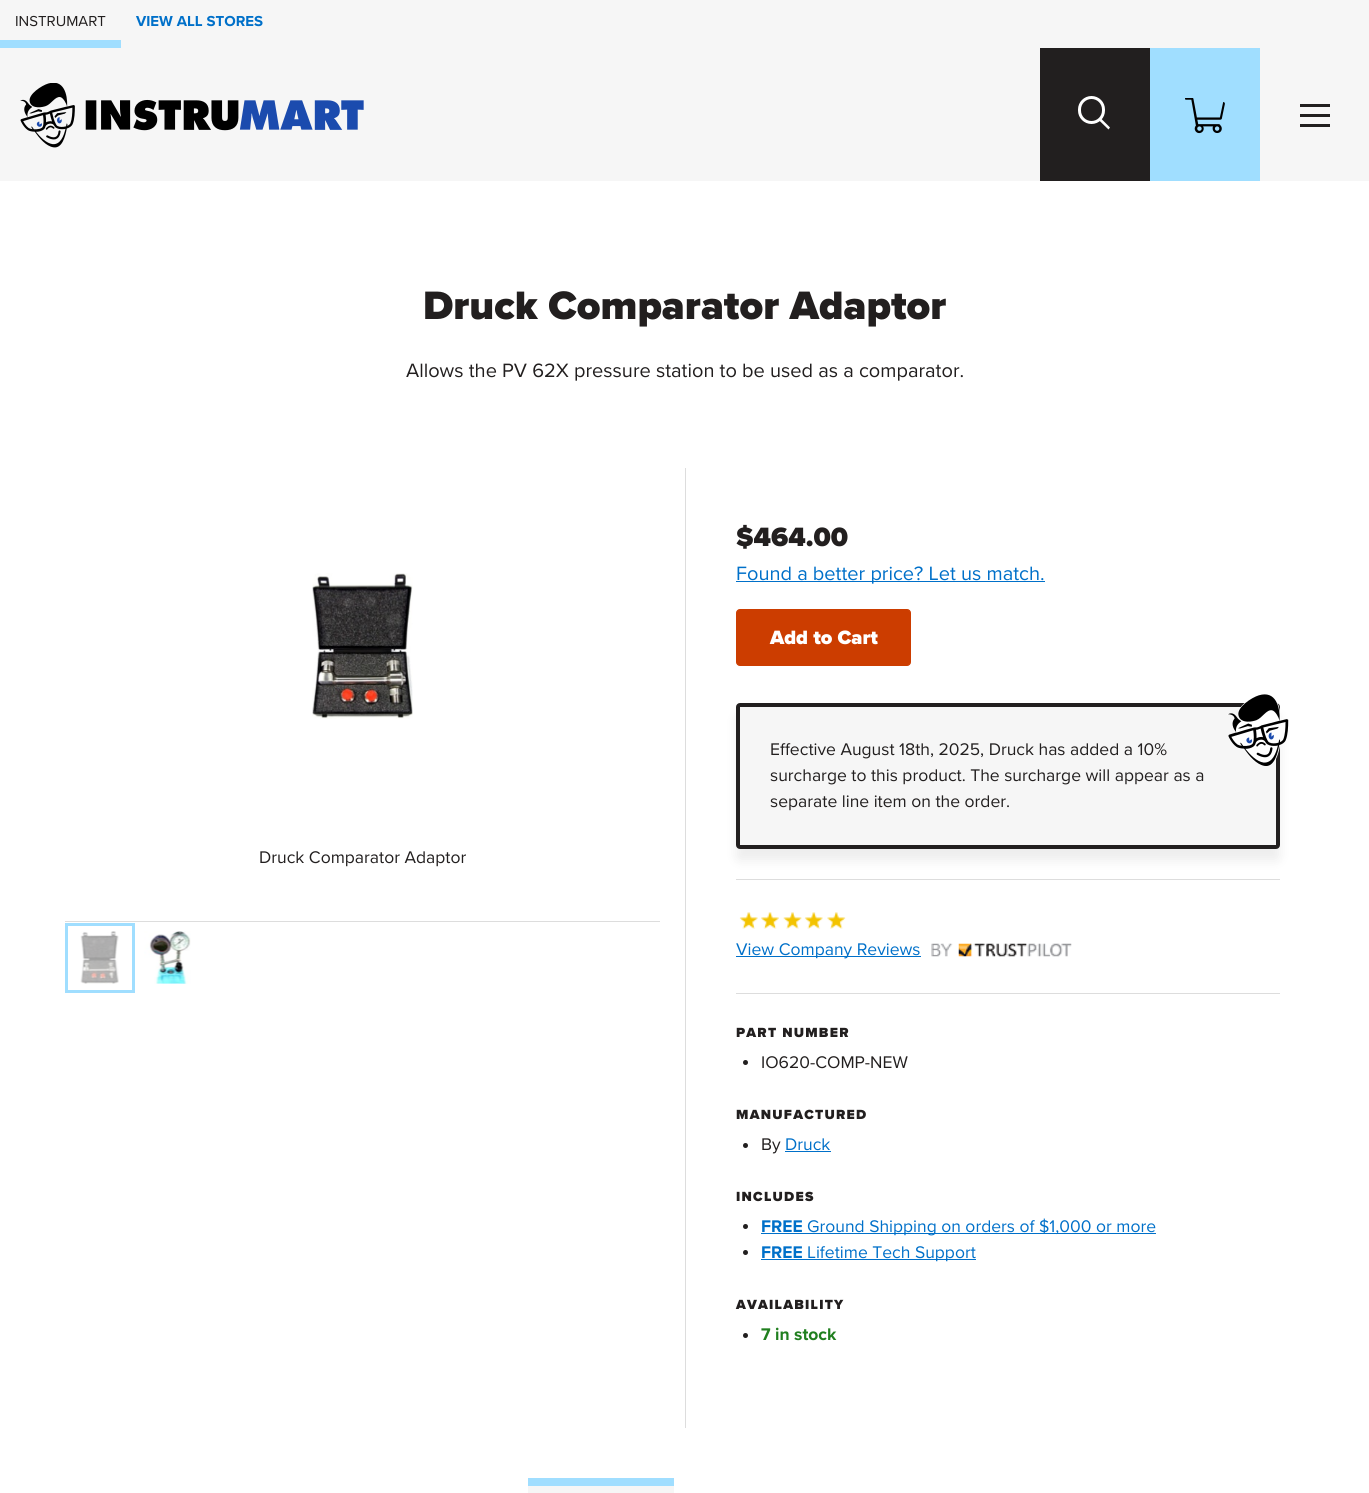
import math
import cairo

surface = cairo.ImageSurface(cairo.Format.RGB24, 1369, 1493)
ctx = cairo.Context(surface)
options = cairo.FontOptions()
options.set_hint_metrics(cairo.HintMetrics.OFF)
options.set_hint_style(cairo.HintStyle.NONE)
ctx.set_font_options(options)
ctx.set_miter_limit(4)


def ink(r, g, b):
    ctx.set_source_rgb(r / 255, g / 255, b / 255)


def write(x, y, s, family, size, color, bold=False, italic=False):
    ctx.select_font_face(family, cairo.FontSlant.ITALIC if italic else cairo.FontSlant.NORMAL, cairo.FontWeight.BOLD if bold else cairo.FontWeight.NORMAL)
    ctx.set_font_size(size)
    ink(*color)
    ctx.move_to(x, y)
    ctx.show_text(s)


def write_spaced(x, y, s, letter, word):
    ctx.move_to(x, y)
    for ch in s:
        ctx.show_text(ch)
        ctx.rel_move_to(letter + word * (ch == ' '), 0)


def block(x, y, w, h, *color):
    ink(*color)
    ctx.rectangle(x, y, w, h)
    ctx.fill()


def round_path(x, y, w, h, r):
    ctx.new_sub_path()
    for i, (u, v) in enumerate([(x + w - r, y + h - r), (x + r, y + h - r), (x + r, y + r), (x + w - r, y + r)]):
        ctx.arc(u, v, r, i * math.pi / 2, (i + 1) * math.pi / 2)
    ctx.close_path()


def blur_box(x, y, w, h, r, blur, alpha):
    ctx.push_group_with_content(cairo.Content.ALPHA)
    ctx.set_operator(cairo.Operator.SOURCE)
    for i in range(15, -16, -2):
        e = blur * i / 6
        if min(w, h) + 2 * e > 0:
            ctx.set_source_rgba(0, 0, 0, alpha * math.erfc((i - 1) / 8.5) / 2)
            round_path(x - e, y - e, w + 2 * e, h + 2 * e, max(0, min(r + e + blur * .6, min(w, h) / 2 + e)))
            ctx.fill()
    ctx.mask(ctx.pop_group())


def paste(path, x, y, w, h):
    ctx.save()
    ctx.set_source_surface(cairo.ImageSurface.create_from_png(path), x, y)
    ctx.rectangle(x, y, w, h)
    ctx.fill()
    ctx.restore()


s1 = dict(family="Proxima Nova", size=15, color=(34, 31, 31))
s2 = dict(family="Proxima Nova", size=15, color=(0, 112, 201), bold=True)
s3 = dict(family="Proxima Nova Black", size=41.1, color=(34, 31, 31))
s4 = dict(family="Proxima Nova", size=20, color=(34, 31, 31))
s5 = dict(family="Proxima Nova", size=17.5, color=(34, 31, 31))
s6 = dict(family="Proxima Nova Black", size=27.5, color=(34, 31, 31))
s7 = dict(family="Proxima Nova", size=20, color=(0, 112, 201))
s8 = dict(family="Proxima Nova Black", size=20, color=(255, 255, 255))
s9 = dict(family="Proxima Nova", size=17.5, color=(0, 112, 201))
s10 = dict(family="Proxima Nova", size=17.5, color=(0, 112, 201), bold=True)
s11 = dict(family="Proxima Nova", size=17.5, color=(32, 127, 31), bold=True)

ink(255, 255, 255)
ctx.paint()
block(0, 0, 1369, 181, 246, 246, 246)
block(0, 40, 121, 8, 160, 222, 255)
write(15, 26, "INSTRUMART", **s1)
write(136, 26, "VIEW ALL STORES", **s2)
paste("pic1.png", 20, 83, 344, 65)
block(1040, 48, 110, 133, 34, 31, 31)
ink(255, 255, 255)
ctx.new_path()
ctx.move_to(1096, 113.5)
ctx.line_to(1110, 127.5)
ctx.line_to(1108.5, 129.5)
ctx.line_to(1094, 115.5)
ctx.close_path()
ctx.fill()
ink(34, 31, 31)
round_path(1079.5, 97.5, 24, 25, 12)
ctx.fill_preserve()
ink(255, 255, 255)
ctx.set_line_width(3)
ctx.stroke()
block(1150, 48, 110, 133, 160, 222, 255)
paste("pic2.png", 1185, 98, 40, 36)
block(1300, 114, 30, 3, 34, 31, 31)
block(1300, 104, 30, 3, 34, 31, 31)
block(1300, 124, 30, 3, 34, 31, 31)
write(423, 319, "Druck Comparator Adaptor", **s3)
write(406, 377, "Allows the PV 62X pressure station to be used as a comparator.", **s4)
paste("pic3.png", 312, 573, 101, 146)
write(259, 863, "Druck Comparator Adaptor", **s5)
block(65, 921, 595, 1, 221, 221, 221)
ctx.rectangle(66.5, 924.5, 67, 67)
ink(160, 222, 255)
ctx.stroke()
paste("pic4.png", 80, 931, 39, 53)
paste("pic5.png", 144, 931, 47, 53)
block(685, 468, 1, 960, 221, 221, 221)
write(736, 546, "$464.00", **s6)
block(736, 581, 309, 1, 0, 112, 201)
write(736, 580, "Found a better price? Let us match.", **s7)
ink(204, 61, 0)
round_path(736.5, 609.5, 174, 56, 3.5)
ctx.fill_preserve()
ctx.set_line_width(1)
ctx.stroke()
write(770, 644, "Add to Cart", **s8)
block(736, 879, 544, 1, 221, 221, 221)
ink(0, 0, 0)
blur_box(736, 715, 544, 146, 4, 6, 0.07)
ink(246, 246, 246)
round_path(738, 705, 540, 142, 2)
ctx.fill_preserve()
ink(34, 31, 31)
ctx.set_line_width(4)
ctx.stroke()
paste("pic6.png", 1227, 694, 62, 72)
write(770, 755, "Effective August 18th, 2025, Druck has added a 10%", **s5)
write(770, 781, "surcharge to this product. The surcharge will appear as a", **s5)
write(770, 807, "separate line item on the order.", **s5)
paste("pic7.png", 739, 912, 107, 17)
block(736, 956, 185, 1, 0, 112, 201)
write(736, 955, "View Company Reviews", **s9)
paste("pic8.png", 931, 943, 141, 14)
block(736, 993, 544, 1, 221, 221, 221)
ctx.select_font_face("Proxima Nova Black")
ctx.set_font_size(13.75)
ink(34, 31, 31)
write_spaced(736, 1037, "PART NUMBER", 1.25, 0)
ctx.new_path()
ctx.arc(745.5, 1062.5, 2.5, 0, 2 * math.pi)
ctx.fill()
write(761, 1068, "IO620-COMP-NEW", **s5)
ctx.select_font_face("Proxima Nova Black")
ctx.set_font_size(13.75)
write_spaced(736, 1119, "MANUFACTURED", 1.25, 0)
ctx.new_path()
ctx.arc(745.5, 1145.5, 2.5, 0, 2 * math.pi)
ctx.fill()
write(761, 1150, "By", **s5)
write(785, 1150, "Druck", **s9)
block(785, 1151, 46, 1, 0, 112, 201)
ctx.select_font_face("Proxima Nova Black")
ctx.set_font_size(13.75)
ink(34, 31, 31)
write_spaced(736, 1201, "INCLUDES", 1.25, 0)
ctx.new_path()
ctx.arc(745.5, 1226.5, 2.5, 0, 2 * math.pi)
ctx.fill()
write(761, 1232, "FREE", **s10)
block(761, 1233, 395, 1, 0, 112, 201)
write(807, 1232, "Ground Shipping on orders of $1,000 or more", **s9)
ink(34, 31, 31)
ctx.new_path()
ctx.arc(745.5, 1252.5, 2.5, 0, 2 * math.pi)
ctx.fill()
write(761, 1258, "FREE", **s10)
block(761, 1259, 215, 1, 0, 112, 201)
write(807, 1258, "Lifetime Tech Support", **s9)
ctx.select_font_face("Proxima Nova Black")
ctx.set_font_size(13.75)
ink(34, 31, 31)
write_spaced(736, 1309, "AVAILABILITY", 1.25, 0)
ctx.new_path()
ctx.arc(745.5, 1335.5, 2.5, 0, 2 * math.pi)
ctx.fill()
write(761, 1340, "7 in stock", **s11)
block(528, 1486, 146, 7, 246, 246, 246)
block(528, 1478, 146, 8, 160, 222, 255)
surface.write_to_png("screenshot.png")
